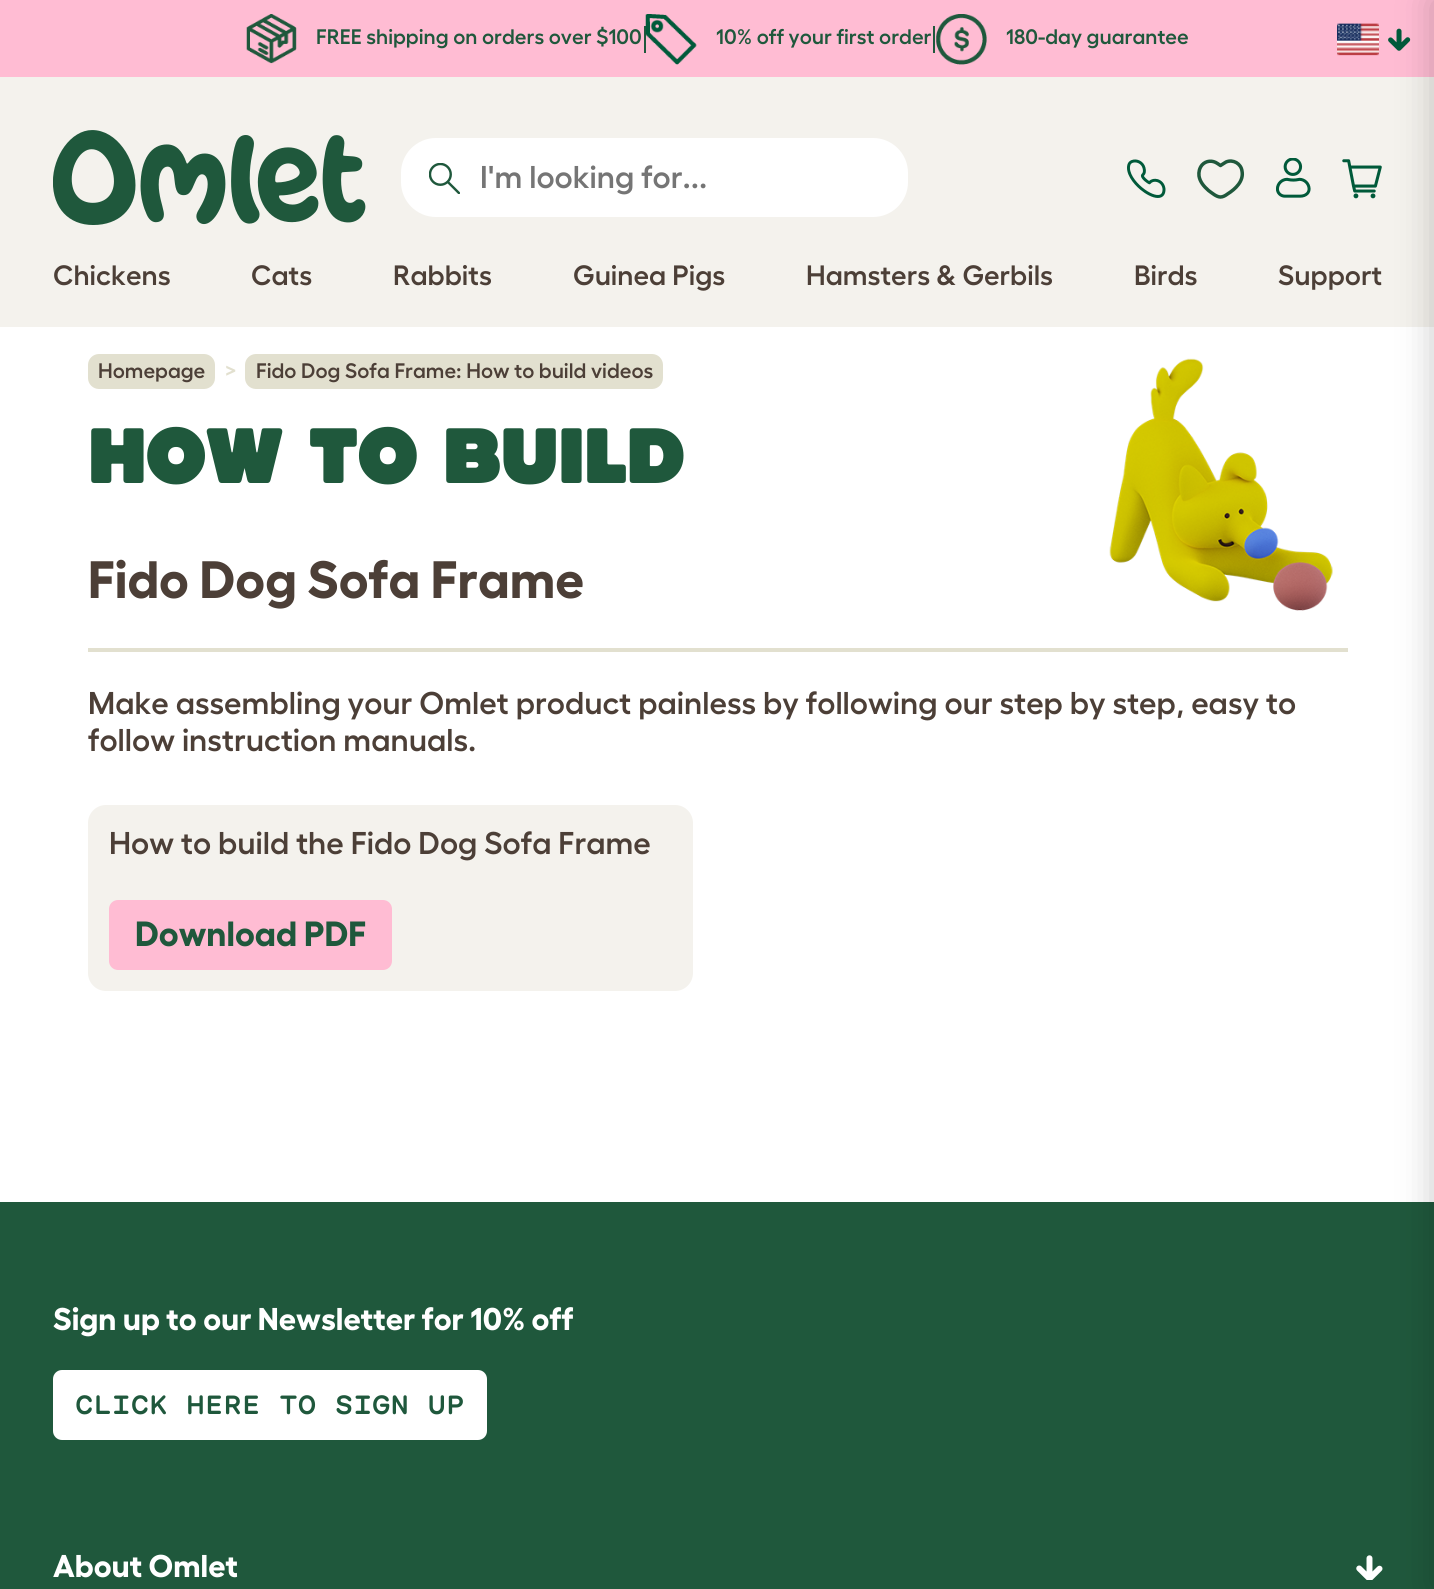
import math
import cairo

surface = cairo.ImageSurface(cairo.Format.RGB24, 1434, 1589)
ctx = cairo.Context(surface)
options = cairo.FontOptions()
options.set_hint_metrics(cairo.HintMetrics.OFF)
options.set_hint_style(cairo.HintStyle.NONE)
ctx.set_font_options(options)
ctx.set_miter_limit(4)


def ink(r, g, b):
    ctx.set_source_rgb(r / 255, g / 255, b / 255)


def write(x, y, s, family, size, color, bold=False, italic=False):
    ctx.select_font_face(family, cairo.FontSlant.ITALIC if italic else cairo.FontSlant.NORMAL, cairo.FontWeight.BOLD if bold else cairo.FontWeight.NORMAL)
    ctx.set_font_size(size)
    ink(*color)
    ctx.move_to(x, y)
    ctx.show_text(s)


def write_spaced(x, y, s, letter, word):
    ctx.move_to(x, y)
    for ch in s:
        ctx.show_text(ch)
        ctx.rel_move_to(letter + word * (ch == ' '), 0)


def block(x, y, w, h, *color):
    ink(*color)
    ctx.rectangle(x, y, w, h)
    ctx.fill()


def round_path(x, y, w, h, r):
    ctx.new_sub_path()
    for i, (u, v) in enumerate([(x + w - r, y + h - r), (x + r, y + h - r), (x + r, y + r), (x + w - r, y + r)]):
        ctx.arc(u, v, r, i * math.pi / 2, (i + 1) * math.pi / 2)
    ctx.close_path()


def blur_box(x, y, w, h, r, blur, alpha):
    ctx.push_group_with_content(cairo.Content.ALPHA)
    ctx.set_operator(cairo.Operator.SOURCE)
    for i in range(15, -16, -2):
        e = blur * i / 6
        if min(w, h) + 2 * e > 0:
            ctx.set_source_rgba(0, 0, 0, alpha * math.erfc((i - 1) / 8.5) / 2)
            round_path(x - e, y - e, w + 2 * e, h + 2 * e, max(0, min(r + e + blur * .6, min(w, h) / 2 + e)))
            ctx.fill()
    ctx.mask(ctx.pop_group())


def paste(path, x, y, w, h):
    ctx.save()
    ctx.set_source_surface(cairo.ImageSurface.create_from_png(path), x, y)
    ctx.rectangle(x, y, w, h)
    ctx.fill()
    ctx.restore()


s1 = dict(family="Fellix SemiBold", size=21, color=(31, 88, 60))
s2 = dict(family="Fellix SemiBold", size=31.5, color=(117, 117, 117))
s3 = dict(family="Fellix SemiBold", size=28, color=(76, 63, 55))
s4 = dict(family="Fellix SemiBold", size=21, color=(76, 63, 55))
s5 = dict(family="Fellix SemiBold", size=21, color=(226, 224, 207))
s6 = dict(family="Fellix", size=52.5, color=(76, 63, 55), bold=True)
s7 = dict(family="Fellix SemiBold", size=31.5, color=(76, 63, 55))
s8 = dict(family="Fellix", size=35, color=(31, 88, 60), bold=True)
s9 = dict(family="Fellix", size=31.5, color=(255, 255, 255), bold=True)

ink(255, 255, 255)
ctx.paint()
block(0, 0, 1434, 77, 255, 188, 211)
paste("pic1.png", 246, 14, 51, 50)
write(316, 44, "FREE shipping on orders over $100", **s1)
block(644, 26, 2, 27, 31, 88, 60)
paste("pic2.png", 645, 14, 52, 51)
write(716, 44, "10% off your first order", **s1)
block(933, 26, 2, 27, 31, 88, 60)
paste("pic3.png", 936, 14, 51, 51)
write(1006, 44, "180-day guarantee", **s1)
paste("pic4.png", 1337, 23, 42, 33)
paste("pic5.png", 1388, 28, 23, 23)
block(0, 77, 1434, 250, 244, 242, 237)
paste("pic6.png", 53, 130, 313, 95)
ink(255, 255, 255)
round_path(401, 138, 507, 79, 35)
ctx.fill()
paste("pic7.png", 429, 163, 31, 31)
write(480, 188, "I'm looking for...", **s2)
paste("pic8.png", 1127, 159, 39, 39)
ctx.new_path()
ctx.move_to(1242, 171)
ctx.curve_to(1241, 163.5, 1233, 159, 1226, 162)
ctx.line_to(1220.5, 165.5)
ctx.line_to(1217.5, 163.5)
ctx.curve_to(1212.5, 160, 1206, 160.5, 1202, 165)
ctx.curve_to(1199.5, 168, 1198.5, 172, 1199, 176)
ctx.curve_to(1200, 182, 1204, 186.5, 1208.5, 190.5)
ctx.curve_to(1212, 193, 1216.5, 197, 1220.5, 197)
ctx.curve_to(1223, 197, 1225.5, 195.5, 1227.5, 194)
ctx.curve_to(1235.5, 189, 1244, 181, 1242, 171)
ctx.close_path()
ink(31, 88, 60)
ctx.set_line_width(3.5)
ctx.set_line_join(cairo.LineJoin.ROUND)
ctx.stroke()
paste("pic9.png", 1276, 158, 35, 40)
paste("pic10.png", 1342, 159, 40, 40)
write(53, 285, "Chickens", **s3)
write(251, 285, "Cats", **s3)
write(393, 285, "Rabbits", **s3)
write(573, 285, "Guinea Pigs", **s3)
write(806, 285, "Hamsters & Gerbils", **s3)
write(1134, 285, "Birds", **s3)
write(1278, 285, "Support", **s3)
ink(226, 224, 207)
round_path(88, 354, 127, 35, 11)
ctx.fill()
write(98, 378, "Homepage", **s4)
write(225, 378, ">", **s5)
round_path(245, 354, 418, 35, 11)
ctx.fill()
write(256, 378, "Fido Dog Sofa Frame: How to build videos", **s4)
block(0, 1202, 1434, 387, 31, 88, 60)
paste("pic12.png", 1356, 1555, 27, 25)
ink(0, 0, 0)
blur_box(1432, 0, 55, 1589, 0, 17.5, 0.2)
ctx.select_font_face("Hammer", cairo.FontSlant.NORMAL, cairo.FontWeight.BOLD)
ctx.set_font_size(80.5)
ink(31, 88, 60)
write_spaced(88, 483, "HOW TO BUILD", -0.75, 0)
paste("pic11.png", 1109, 358, 224, 253)
write(88, 598, "Fido Dog Sofa Frame", **s6)
block(88, 648, 1260, 4, 226, 224, 207)
write(88, 714, "Make assembling your Omlet product painless by following our step by step, easy to", **s7)
write(88, 751, "follow instruction manuals.", **s7)
ink(244, 242, 237)
round_path(88, 805, 605, 186, 18)
ctx.fill()
write(109, 854, "How to build the Fido Dog Sofa Frame", **s7)
ink(255, 188, 211)
round_path(109, 900, 283, 70, 9)
ctx.fill()
write(135, 946, "Download PDF", **s8)
write(53, 1330, "Sign up to our Newsletter for 10% off", **s9)
round_path(53, 1370, 434, 70, 9)
ctx.fill()
ctx.select_font_face("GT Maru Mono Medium")
ctx.set_font_size(26.25)
ink(31, 88, 60)
write_spaced(75, 1414, "CLICK HERE TO SIGN UP", 0.1, 0)
write(53, 1577, "About Omlet", **s9)
surface.write_to_png("screenshot.png")
